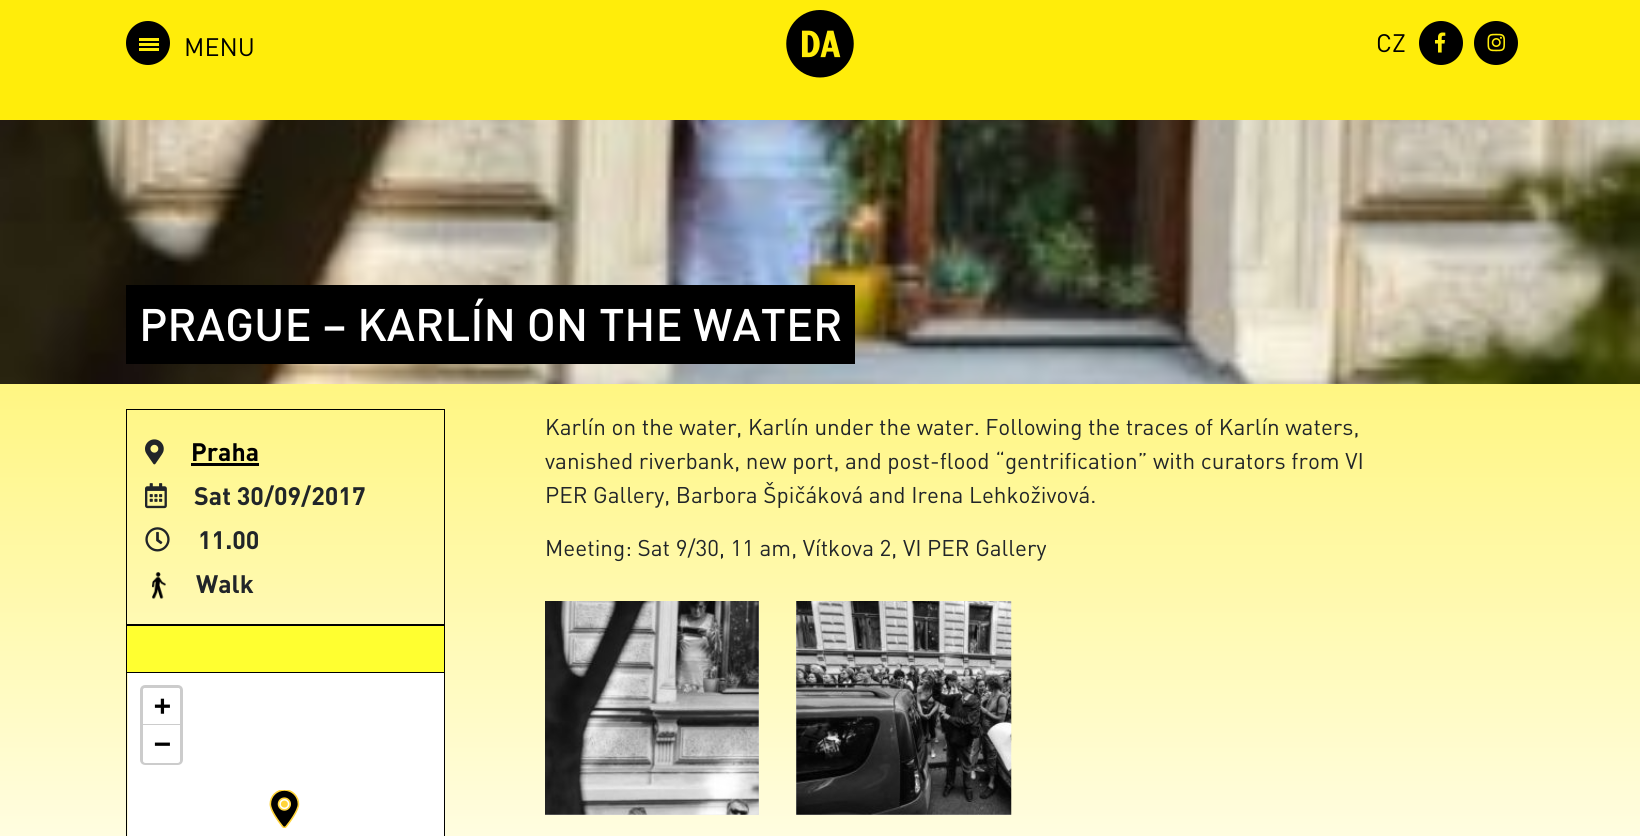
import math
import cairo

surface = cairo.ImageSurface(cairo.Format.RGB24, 1640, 836)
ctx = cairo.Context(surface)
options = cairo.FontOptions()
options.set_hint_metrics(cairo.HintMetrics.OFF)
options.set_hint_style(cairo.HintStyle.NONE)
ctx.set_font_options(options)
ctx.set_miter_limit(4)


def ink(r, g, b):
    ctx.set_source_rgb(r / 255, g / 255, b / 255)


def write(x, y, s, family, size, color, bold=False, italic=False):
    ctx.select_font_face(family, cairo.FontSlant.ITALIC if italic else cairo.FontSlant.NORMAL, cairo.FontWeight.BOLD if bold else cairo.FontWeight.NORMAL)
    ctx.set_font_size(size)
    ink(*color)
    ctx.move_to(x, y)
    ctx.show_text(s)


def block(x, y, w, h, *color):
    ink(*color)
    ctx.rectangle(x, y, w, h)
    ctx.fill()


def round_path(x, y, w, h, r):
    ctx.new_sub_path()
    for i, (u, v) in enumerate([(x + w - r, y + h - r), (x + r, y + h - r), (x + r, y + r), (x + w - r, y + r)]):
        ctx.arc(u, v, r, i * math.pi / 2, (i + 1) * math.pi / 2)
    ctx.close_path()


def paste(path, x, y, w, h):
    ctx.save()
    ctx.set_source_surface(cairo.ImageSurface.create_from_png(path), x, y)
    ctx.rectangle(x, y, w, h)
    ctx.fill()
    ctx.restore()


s1 = dict(family="DIN", size=25, color=(0, 0, 0))
s2 = dict(family="DIN Medium", size=45, color=(255, 255, 255))
s3 = dict(family="DIN", size=25, color=(0, 0, 0), bold=True)
s4 = dict(family="DIN", size=25, color=(33, 37, 41), bold=True)
s5 = dict(family="DejaVu Sans Mono", size=28, color=(0, 0, 0), bold=True)
s6 = dict(family="DIN", size=22.5, color=(33, 37, 41))

ink(255, 255, 255)
ctx.paint()
block(0, 0, 1640, 120, 255, 237, 10)
ink(0, 0, 0)
ctx.arc(148, 43, 22, 0, 2 * math.pi)
ctx.fill()
block(139, 38, 20, 3, 255, 237, 10)
block(139, 43, 20, 3, 255, 237, 10)
block(139, 48, 20, 3, 255, 237, 10)
write(184, 56, "MENU", **s1)
paste("pic1.png", 786, 10, 68, 68)
write(1376, 52, "CZ", **s1)
ctx.new_path()
ctx.arc(1441, 43, 22, 0, 2 * math.pi)
ctx.fill()
paste("pic2.png", 1435, 32, 11, 21)
ctx.arc(1496, 43, 22, 0, 2 * math.pi)
ctx.fill()
paste("pic3.png", 1487, 33, 18, 19)
gradient = cairo.LinearGradient(820, -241, 820, 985)
gradient.add_color_stop_rgba(0, 1, 0.929, 0, 1)
gradient.add_color_stop_rgba(1, 1, 1, 1, 1)
ctx.set_source(gradient)
ctx.rectangle(0, 384, 1640, 452)
ctx.fill()
paste("pic4.png", 0, 120, 1640, 264)
block(126, 285, 729, 79, 0, 0, 0)
write(139, 341, "PRAGUE – KARLÍN ON THE WATER", **s2)
ctx.rectangle(126.5, 409.5, 318, 215)
ink(0, 0, 0)
ctx.set_line_width(1)
ctx.stroke()
paste("pic5.png", 145, 439, 19, 26)
write(191, 461, "Praha", **s3)
block(191, 463, 68, 3, 0, 0, 0)
paste("pic6.png", 145, 483, 22, 26)
write(194, 505, "Sat 30/09/2017", **s4)
paste("pic7.png", 145, 527, 25, 25)
write(198, 549, "11.00", **s4)
paste("pic8.png", 152, 572, 14, 27)
write(196, 593, "Walk", **s4)
ink(255, 255, 48)
ctx.rectangle(126.5, 625.5, 318, 47)
ctx.fill_preserve()
ink(0, 0, 0)
ctx.stroke()
block(444, 673, 1, 163, 0, 0, 0)
block(126, 673, 1, 163, 0, 0, 0)
block(128, 673, 316, 163, 255, 255, 255)
round_path(141.5, 686.5, 40, 77, 3.5)
ink(204, 204, 204)
ctx.set_line_width(3)
ctx.stroke()
ink(255, 255, 255)
ctx.new_path()
ctx.move_to(145.5, 688)
ctx.line_to(177.5, 688)
ctx.curve_to(179, 688, 180, 689, 180, 690.5)
ctx.line_to(180, 725)
ctx.line_to(143, 725)
ctx.line_to(143, 690.5)
ctx.curve_to(143, 689, 144, 688, 145.5, 688)
ctx.close_path()
ctx.fill()
block(143, 724, 37, 1, 204, 204, 204)
write(154, 715, "+", **s5)
ink(255, 255, 255)
ctx.new_path()
ctx.move_to(143, 725)
ctx.line_to(180, 725)
ctx.line_to(180, 760.5)
ctx.curve_to(180, 762, 179, 763, 177.5, 763)
ctx.line_to(145.5, 763)
ctx.curve_to(144, 763, 143, 762, 143, 760.5)
ctx.close_path()
ctx.fill()
write(154, 753, "−", **s5)
paste("pic9.png", 269, 790, 31, 38)
write(545, 435, "Karlín on the water, Karlín under the water. Following the traces of Karlín waters,", **s6)
write(545, 469, "vanished riverbank, new port, and post-flood “gentrification” with curators from VI", **s6)
write(545, 503, "PER Gallery, Barbora Špičáková and Irena Lehkoživová.", **s6)
write(545, 556, "Meeting: Sat 9/30, 11 am, Vítkova 2, VI PER Gallery", **s6)
block(545, 601, 214, 214, 224, 224, 224)
paste("pic10.png", 545, 601, 214, 214)
block(796, 601, 215, 214, 224, 224, 224)
paste("pic11.png", 796, 601, 216, 214)
surface.write_to_png("screenshot.png")
